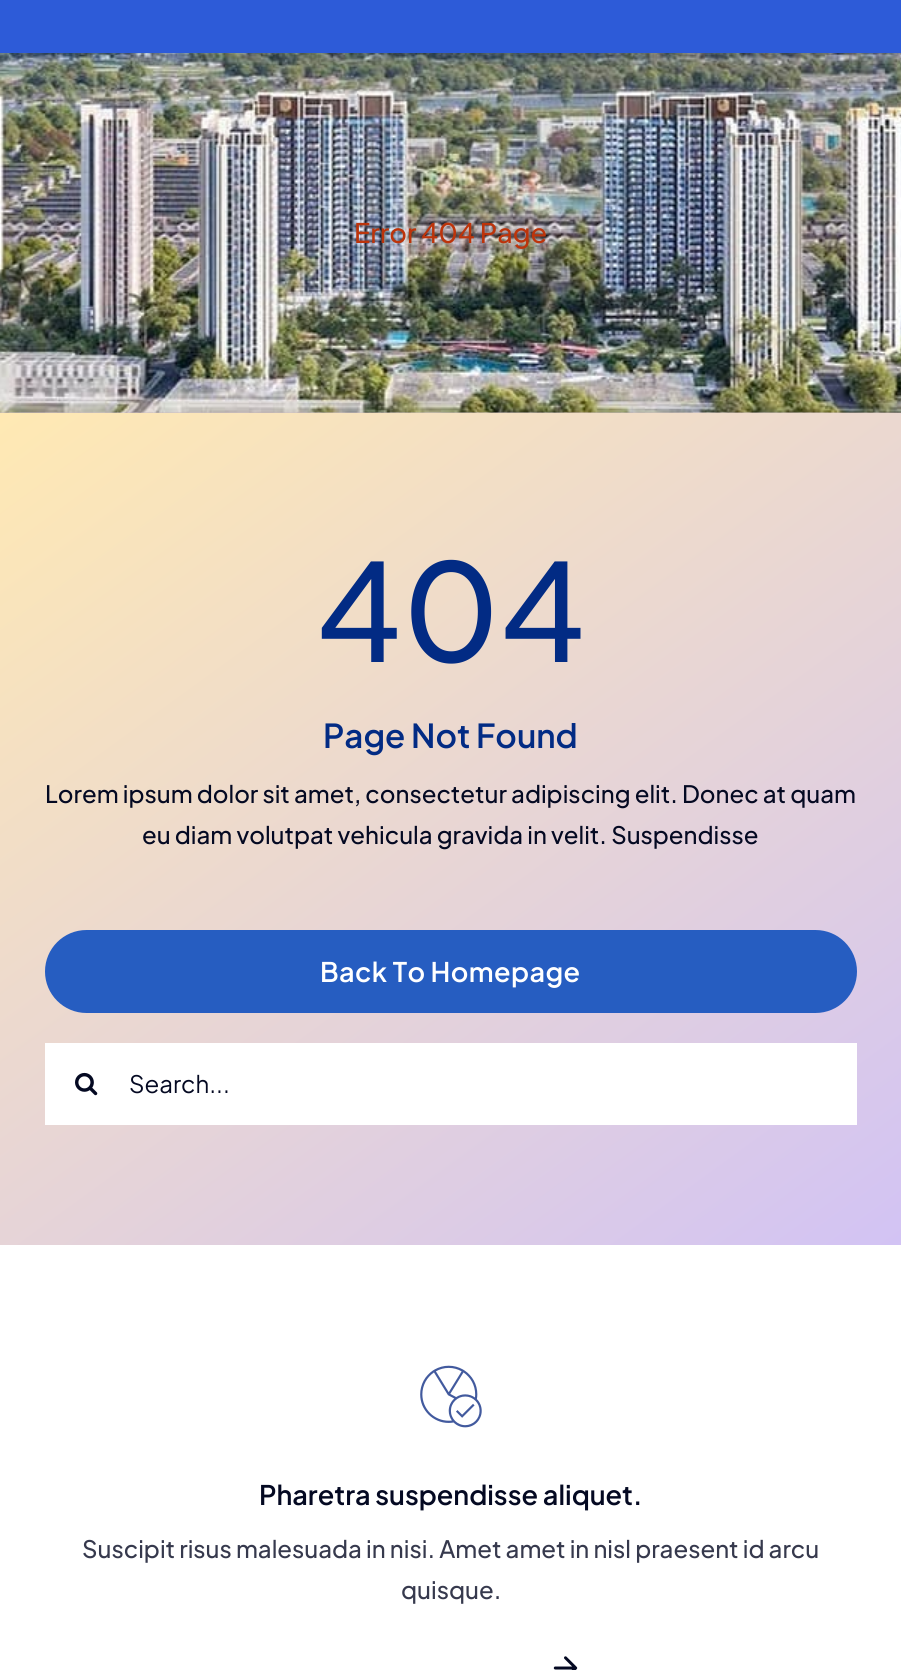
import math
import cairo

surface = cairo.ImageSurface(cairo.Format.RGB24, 901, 1670)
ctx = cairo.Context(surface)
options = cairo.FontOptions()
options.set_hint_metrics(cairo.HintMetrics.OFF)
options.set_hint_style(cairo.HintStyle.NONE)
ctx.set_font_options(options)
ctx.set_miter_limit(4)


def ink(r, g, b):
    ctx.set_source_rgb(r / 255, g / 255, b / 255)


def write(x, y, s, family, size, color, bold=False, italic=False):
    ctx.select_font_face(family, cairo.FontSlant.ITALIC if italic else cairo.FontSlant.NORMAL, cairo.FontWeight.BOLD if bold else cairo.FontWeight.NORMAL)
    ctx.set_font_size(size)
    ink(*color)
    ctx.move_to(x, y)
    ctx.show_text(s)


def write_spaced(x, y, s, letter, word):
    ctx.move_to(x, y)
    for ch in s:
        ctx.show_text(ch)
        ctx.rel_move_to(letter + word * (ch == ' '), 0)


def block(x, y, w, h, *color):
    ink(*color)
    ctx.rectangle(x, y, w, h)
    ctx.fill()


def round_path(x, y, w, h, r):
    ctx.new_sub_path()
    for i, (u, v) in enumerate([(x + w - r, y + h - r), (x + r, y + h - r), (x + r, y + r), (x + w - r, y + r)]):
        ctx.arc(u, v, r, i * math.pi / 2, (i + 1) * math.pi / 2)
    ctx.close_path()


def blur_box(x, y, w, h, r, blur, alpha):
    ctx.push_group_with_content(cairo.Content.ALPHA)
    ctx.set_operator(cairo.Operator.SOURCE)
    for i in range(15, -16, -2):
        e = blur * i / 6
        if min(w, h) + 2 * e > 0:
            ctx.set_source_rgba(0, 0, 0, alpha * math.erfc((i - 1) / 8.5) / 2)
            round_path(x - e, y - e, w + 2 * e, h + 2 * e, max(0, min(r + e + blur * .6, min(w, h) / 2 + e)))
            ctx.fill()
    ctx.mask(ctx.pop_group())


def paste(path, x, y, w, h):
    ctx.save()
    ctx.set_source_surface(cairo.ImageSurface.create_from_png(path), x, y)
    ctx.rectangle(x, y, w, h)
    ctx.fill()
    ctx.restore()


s1 = dict(family="Plus Jakarta Sans Medium", size=27, color=(188, 52, 11))
s2 = dict(family="Plus Jakarta Sans Medium", size=135, color=(2, 43, 132))
s3 = dict(family="Plus Jakarta Sans SemiBold", size=33, color=(2, 43, 132))
s4 = dict(family="Plus Jakarta Sans Medium", size=24, color=(4, 9, 34))
s5 = dict(family="Plus Jakarta Sans", size=24, color=(4, 9, 34))
s6 = dict(family="Plus Jakarta Sans SemiBold", size=27, color=(4, 9, 34))
s7 = dict(family="Plus Jakarta Sans Medium", size=24, color=(54, 57, 77))

ink(255, 255, 255)
ctx.paint()
block(0, 412, 901, 1, 206, 191, 190)
paste("pic1.png", 0, 53, 901, 360)
ink(4, 8, 32)
blur_box(0, 0, 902, 53, 0, 10, 0.1)
block(0, 0, 901, 53, 45, 91, 216)
write(354, 243, "Error 404 Page", **s1)
gradient = cairo.LinearGradient(97, 342, 804, 1316)
gradient.add_color_stop_rgba(0, 1, 0.914, 0.702, 1)
gradient.add_color_stop_rgba(1, 0.824, 0.765, 0.957, 1)
ctx.set_source(gradient)
ctx.rectangle(0, 413, 901, 832)
ctx.fill()
write(316, 662, "404", **s2)
write(323, 748, "Page Not Found", **s3)
write(45, 803, "Lorem ipsum dolor sit amet, consectetur adipiscing elit. Donec at quam", **s4)
write(142, 844, "eu diam volutpat vehicula gravida in velit. Suspendisse", **s4)
ink(38, 93, 193)
round_path(45, 930, 812, 83, 41.5)
ctx.fill()
ctx.select_font_face("Plus Jakarta Sans SemiBold")
ctx.set_font_size(27)
ink(255, 255, 255)
write_spaced(320, 982, "Back To Homepage", 0.4, 0)
block(45, 1043, 812, 82, 255, 255, 255)
paste("pic2.png", 75, 1072, 23, 24)
write(129, 1093, "Search...", **s5)
paste("pic3.png", 420, 1365, 62, 63)
write(259, 1505, "Pharetra suspendisse aliquet.", **s6)
write(82, 1558, "Suscipit risus malesuada in nisi. Amet amet in nisl praesent id arcu", **s7)
write(401, 1599, "quisque.", **s7)
paste("pic4.png", 553, 1656, 25, 14)
surface.write_to_png("screenshot.png")
